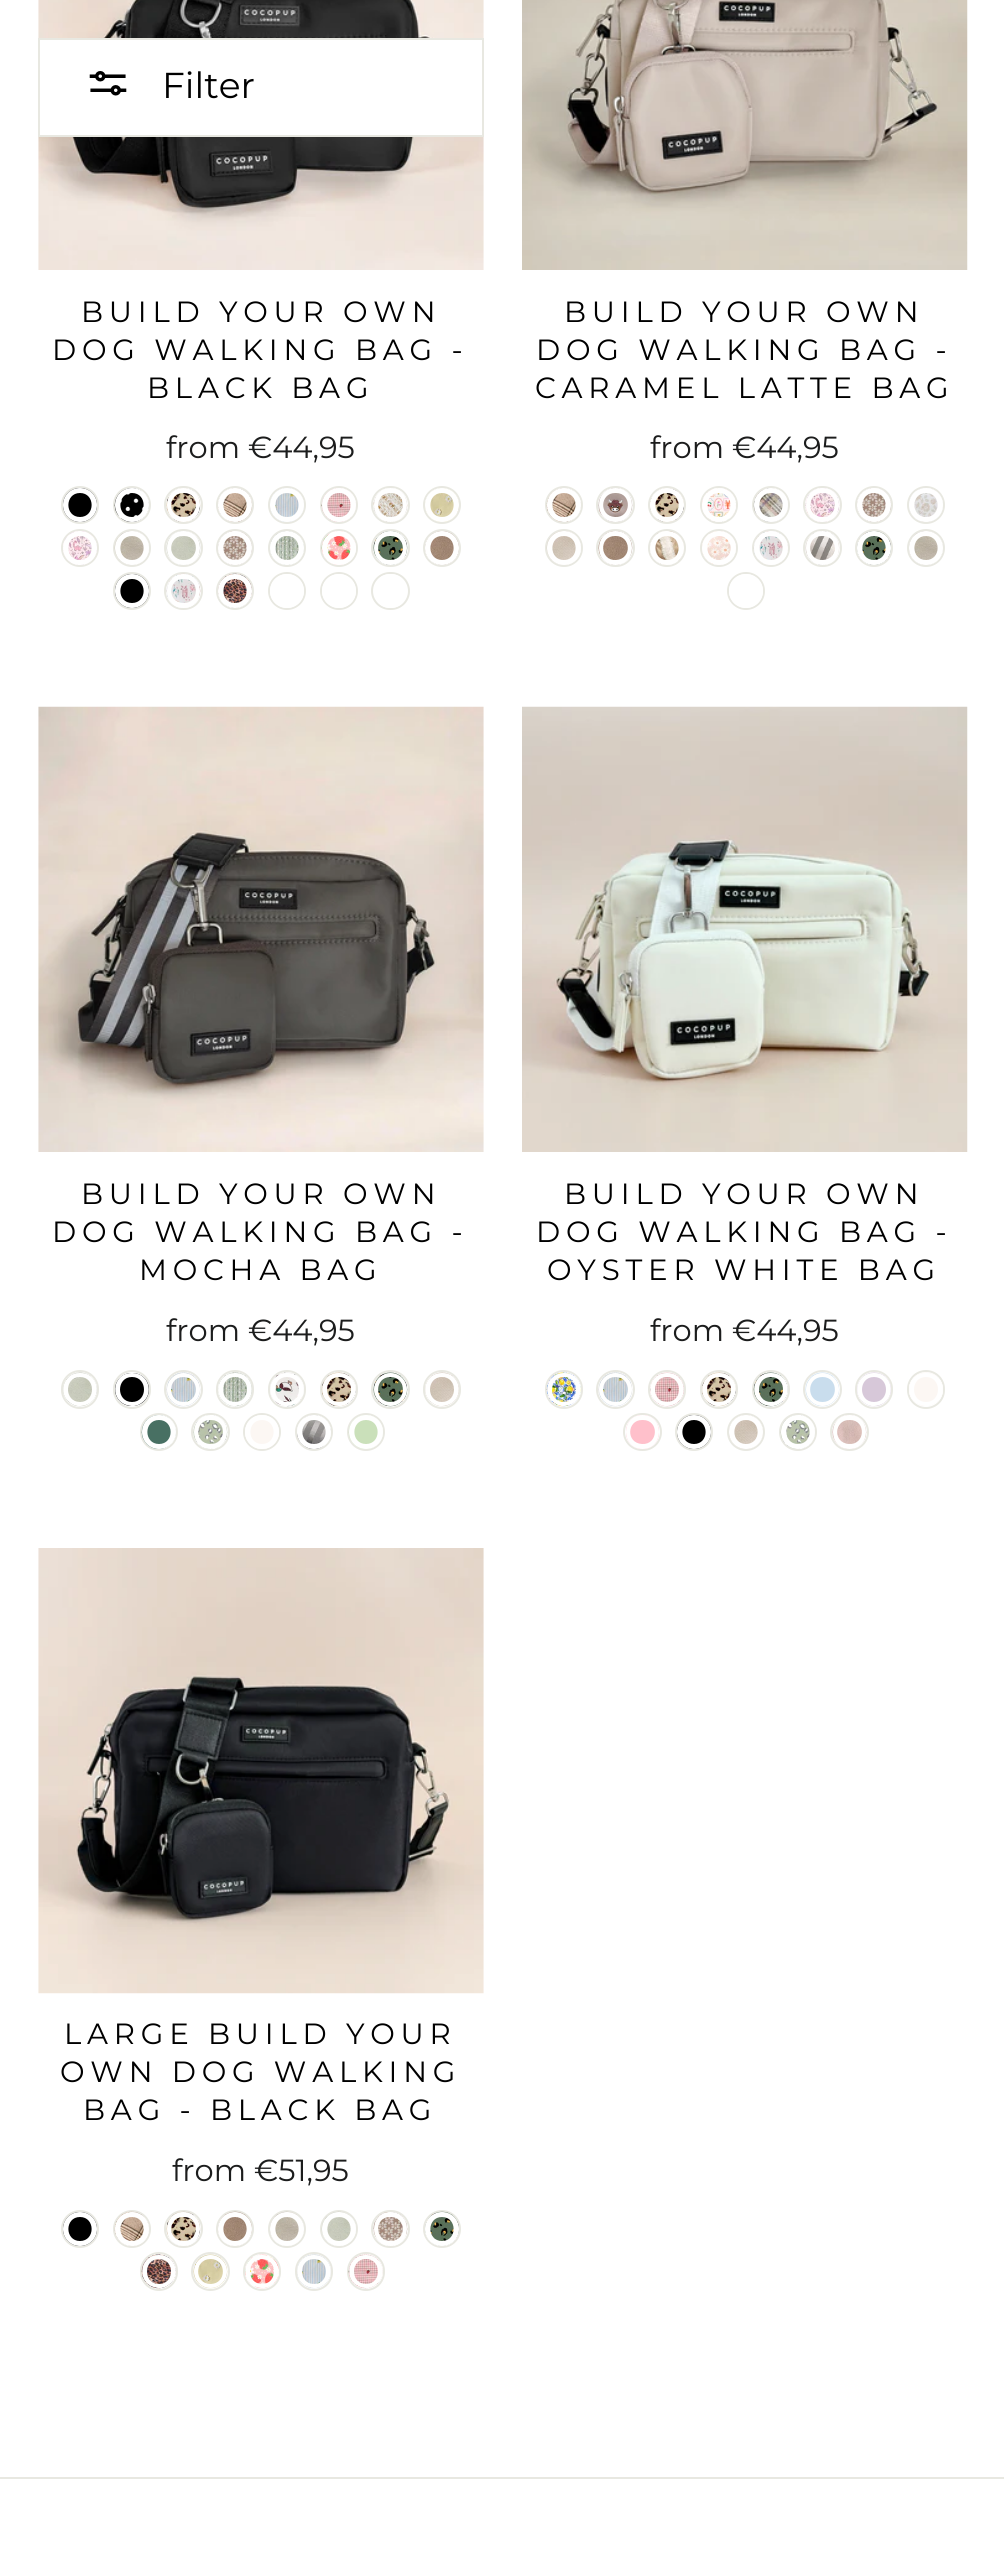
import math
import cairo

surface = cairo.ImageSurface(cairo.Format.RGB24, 1004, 2563)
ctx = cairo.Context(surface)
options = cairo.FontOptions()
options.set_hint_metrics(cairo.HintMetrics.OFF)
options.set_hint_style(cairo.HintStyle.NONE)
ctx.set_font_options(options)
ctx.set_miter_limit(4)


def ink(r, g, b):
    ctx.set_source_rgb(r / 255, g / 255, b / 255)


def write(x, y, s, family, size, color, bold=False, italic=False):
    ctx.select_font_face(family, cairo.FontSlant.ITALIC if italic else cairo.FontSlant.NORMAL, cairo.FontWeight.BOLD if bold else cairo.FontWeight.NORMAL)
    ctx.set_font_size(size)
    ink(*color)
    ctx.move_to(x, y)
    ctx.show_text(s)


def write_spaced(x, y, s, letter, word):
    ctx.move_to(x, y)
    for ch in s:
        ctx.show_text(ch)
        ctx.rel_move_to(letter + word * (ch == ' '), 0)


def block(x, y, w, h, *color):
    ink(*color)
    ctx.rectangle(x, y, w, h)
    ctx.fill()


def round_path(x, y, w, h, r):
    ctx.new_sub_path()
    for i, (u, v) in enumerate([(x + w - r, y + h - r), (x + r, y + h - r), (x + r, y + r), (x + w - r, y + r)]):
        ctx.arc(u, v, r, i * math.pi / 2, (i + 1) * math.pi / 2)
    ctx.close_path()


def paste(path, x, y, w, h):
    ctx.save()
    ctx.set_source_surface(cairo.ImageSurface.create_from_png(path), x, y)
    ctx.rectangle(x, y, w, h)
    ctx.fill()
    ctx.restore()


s1 = dict(family="Montserrat", size=36, color=(0, 0, 0))
s2 = dict(family="Montserrat", size=30.5, color=(28, 29, 29))

ink(255, 255, 255)
ctx.paint()
paste("pic2.png", 38, 0, 446, 270)
ink(255, 255, 255)
ctx.rectangle(39, 39, 444, 97)
ctx.fill_preserve()
ink(232, 232, 225)
ctx.stroke()
paste("pic1.png", 89, 71, 38, 25)
write(162, 98, "Filter", **s1)
ctx.set_font_size(29.25)
write_spaced(81, 322, "BUILD YOUR OWN", 5.8, 0)
write_spaced(52, 360, "DOG WALKING BAG -", 5.8, 0)
write_spaced(147, 398, "BLACK BAG", 5.8, 0)
write(166, 458, "from €44,95", **s2)
ctx.new_path()
ctx.arc(80, 505, 18, 0, 2 * math.pi)
ink(232, 232, 225)
ctx.stroke()
ink(0, 0, 0)
ctx.arc(80, 505, 17, 0, 2 * math.pi)
ctx.fill()
ink(255, 255, 255)
ctx.set_fill_rule(cairo.FillRule.EVEN_ODD)
ctx.new_path()
ctx.move_to(80, 488)
ctx.curve_to(70.5, 488, 63, 495.5, 63, 505)
ctx.curve_to(63, 514.5, 70.5, 522, 80, 522)
ctx.curve_to(89.5, 522, 97, 514.5, 97, 505)
ctx.curve_to(97, 495.5, 89.5, 488, 80, 488)
ctx.close_path()
ctx.move_to(80, 493)
ctx.curve_to(64.5, 493, 64.5, 517, 80, 517)
ctx.curve_to(95.5, 517, 95.5, 493, 80, 493)
ctx.close_path()
ctx.fill()
ctx.arc(132, 505, 18, 0, 2 * math.pi)
ink(232, 232, 225)
ctx.stroke()
paste("pic3.png", 114, 488, 35, 34)
ink(255, 255, 255)
ctx.new_path()
ctx.move_to(132, 488)
ctx.curve_to(122.5, 488, 115, 495.5, 115, 505)
ctx.curve_to(115, 514.5, 122.5, 522, 132, 522)
ctx.curve_to(141.5, 522, 149, 514.5, 149, 505)
ctx.curve_to(149, 495.5, 141.5, 488, 132, 488)
ctx.close_path()
ctx.move_to(132, 493)
ctx.curve_to(116.5, 493, 116.5, 517, 132, 517)
ctx.curve_to(147.5, 517, 147.5, 493, 132, 493)
ctx.close_path()
ctx.fill()
round_path(165, 487, 37, 36, 18)
ink(232, 232, 225)
ctx.stroke()
paste("pic4.png", 166, 488, 35, 34)
ink(255, 255, 255)
ctx.new_path()
ctx.move_to(183.5, 488)
ctx.curve_to(161.5, 488, 161.5, 522, 183.5, 522)
ctx.curve_to(205.5, 522, 205.5, 488, 183.5, 488)
ctx.close_path()
ctx.move_to(183, 493)
ctx.curve_to(168, 493, 166.5, 516, 183, 517)
ctx.curve_to(199.5, 518, 200.5, 493, 184, 493)
ctx.close_path()
ctx.fill()
ctx.arc(235, 505, 18, 0, 2 * math.pi)
ink(232, 232, 225)
ctx.stroke()
paste("pic5.png", 218, 488, 35, 34)
ink(255, 255, 255)
ctx.new_path()
ctx.move_to(235, 488)
ctx.curve_to(225.5, 488, 218, 495.5, 218, 505)
ctx.curve_to(218, 514.5, 225.5, 522, 235, 522)
ctx.curve_to(244.5, 522, 252, 514.5, 252, 505)
ctx.curve_to(252, 495.5, 244.5, 488, 235, 488)
ctx.close_path()
ctx.move_to(235, 493)
ctx.curve_to(219.5, 493, 219.5, 517, 235, 517)
ctx.curve_to(250.5, 517, 250.5, 493, 235, 493)
ctx.close_path()
ctx.fill()
ctx.arc(287, 505, 18, 0, 2 * math.pi)
ink(232, 232, 225)
ctx.stroke()
paste("pic6.png", 270, 488, 34, 34)
ink(255, 255, 255)
ctx.new_path()
ctx.move_to(287, 488)
ctx.curve_to(277.5, 488, 270, 495.5, 270, 505)
ctx.curve_to(270, 514.5, 277.5, 522, 287, 522)
ctx.curve_to(296.5, 522, 304, 514.5, 304, 505)
ctx.curve_to(304, 495.5, 296.5, 488, 287, 488)
ctx.close_path()
ctx.move_to(287, 493)
ctx.curve_to(271.5, 493, 271.5, 517, 287, 517)
ctx.curve_to(302.5, 517, 302.5, 493, 287, 493)
ctx.close_path()
ctx.fill()
ctx.arc(339, 505, 18, 0, 2 * math.pi)
ink(232, 232, 225)
ctx.stroke()
paste("pic7.png", 321, 488, 35, 34)
ink(255, 255, 255)
ctx.new_path()
ctx.move_to(339, 488)
ctx.curve_to(329.5, 488, 322, 495.5, 322, 505)
ctx.curve_to(322, 514.5, 329.5, 522, 339, 522)
ctx.curve_to(348.5, 522, 356, 514.5, 356, 505)
ctx.curve_to(356, 495.5, 348.5, 488, 339, 488)
ctx.close_path()
ctx.move_to(339, 493)
ctx.curve_to(323.5, 493, 323.5, 517, 339, 517)
ctx.curve_to(354.5, 517, 354.5, 493, 339, 493)
ctx.close_path()
ctx.fill()
round_path(372, 487, 37, 36, 18)
ink(232, 232, 225)
ctx.stroke()
paste("pic8.png", 373, 488, 35, 34)
ink(255, 255, 255)
ctx.new_path()
ctx.move_to(390.5, 488)
ctx.curve_to(368.5, 488, 368.5, 522, 390.5, 522)
ctx.curve_to(412.5, 522, 412.5, 488, 390.5, 488)
ctx.close_path()
ctx.move_to(390, 493)
ctx.curve_to(375, 493, 373.5, 516, 390, 517)
ctx.curve_to(406.5, 518, 407.5, 493, 391, 493)
ctx.close_path()
ctx.fill()
ctx.arc(442, 505, 18, 0, 2 * math.pi)
ink(232, 232, 225)
ctx.stroke()
paste("pic9.png", 425, 488, 34, 34)
ink(255, 255, 255)
ctx.new_path()
ctx.move_to(442, 488)
ctx.curve_to(432.5, 488, 425, 495.5, 425, 505)
ctx.curve_to(425, 514.5, 432.5, 522, 442, 522)
ctx.curve_to(451.5, 522, 459, 514.5, 459, 505)
ctx.curve_to(459, 495.5, 451.5, 488, 442, 488)
ctx.close_path()
ctx.move_to(442, 493)
ctx.curve_to(426.5, 493, 426.5, 517, 442, 517)
ctx.curve_to(457.5, 517, 457.5, 493, 442, 493)
ctx.close_path()
ctx.fill()
ctx.arc(80, 548, 18, 0, 2 * math.pi)
ink(232, 232, 225)
ctx.stroke()
paste("pic10.png", 63, 531, 34, 34)
ink(255, 255, 255)
ctx.new_path()
ctx.move_to(80, 531)
ctx.curve_to(70.5, 531, 63, 538.5, 63, 548)
ctx.curve_to(63, 557.5, 70.5, 565, 80, 565)
ctx.curve_to(89.5, 565, 97, 557.5, 97, 548)
ctx.curve_to(97, 538.5, 89.5, 531, 80, 531)
ctx.close_path()
ctx.move_to(80, 536)
ctx.curve_to(64.5, 536, 64.5, 560, 80, 560)
ctx.curve_to(95.5, 560, 95.5, 536, 80, 536)
ctx.close_path()
ctx.fill()
ctx.arc(132, 548, 18, 0, 2 * math.pi)
ink(232, 232, 225)
ctx.stroke()
paste("pic11.png", 114, 531, 35, 34)
ink(255, 255, 255)
ctx.new_path()
ctx.move_to(132, 531)
ctx.curve_to(122.5, 531, 115, 538.5, 115, 548)
ctx.curve_to(115, 557.5, 122.5, 565, 132, 565)
ctx.curve_to(141.5, 565, 149, 557.5, 149, 548)
ctx.curve_to(149, 538.5, 141.5, 531, 132, 531)
ctx.close_path()
ctx.move_to(132, 536)
ctx.curve_to(116.5, 536, 116.5, 560, 132, 560)
ctx.curve_to(147.5, 560, 147.5, 536, 132, 536)
ctx.close_path()
ctx.fill()
round_path(165, 530, 37, 36, 18)
ink(232, 232, 225)
ctx.stroke()
paste("pic12.png", 166, 531, 35, 34)
ink(255, 255, 255)
ctx.new_path()
ctx.move_to(183.5, 531)
ctx.curve_to(161.5, 531, 161.5, 565, 183.5, 565)
ctx.curve_to(205.5, 565, 205.5, 531, 183.5, 531)
ctx.close_path()
ctx.move_to(183, 536)
ctx.curve_to(168, 536, 166.5, 559, 183, 560)
ctx.curve_to(199.5, 561, 200.5, 536, 184, 536)
ctx.close_path()
ctx.fill()
ctx.arc(235, 548, 18, 0, 2 * math.pi)
ink(232, 232, 225)
ctx.stroke()
paste("pic13.png", 218, 531, 34, 34)
ink(255, 255, 255)
ctx.new_path()
ctx.move_to(235, 531)
ctx.curve_to(225.5, 531, 218, 538.5, 218, 548)
ctx.curve_to(218, 557.5, 225.5, 565, 235, 565)
ctx.curve_to(244.5, 565, 252, 557.5, 252, 548)
ctx.curve_to(252, 538.5, 244.5, 531, 235, 531)
ctx.close_path()
ctx.move_to(235, 536)
ctx.curve_to(219.5, 536, 219.5, 560, 235, 560)
ctx.curve_to(250.5, 560, 250.5, 536, 235, 536)
ctx.close_path()
ctx.fill()
ctx.arc(287, 548, 18, 0, 2 * math.pi)
ink(232, 232, 225)
ctx.stroke()
paste("pic14.png", 270, 531, 34, 34)
ink(255, 255, 255)
ctx.new_path()
ctx.move_to(287, 531)
ctx.curve_to(277.5, 531, 270, 538.5, 270, 548)
ctx.curve_to(270, 557.5, 277.5, 565, 287, 565)
ctx.curve_to(296.5, 565, 304, 557.5, 304, 548)
ctx.curve_to(304, 538.5, 296.5, 531, 287, 531)
ctx.close_path()
ctx.move_to(287, 536)
ctx.curve_to(271.5, 536, 271.5, 560, 287, 560)
ctx.curve_to(302.5, 560, 302.5, 536, 287, 536)
ctx.close_path()
ctx.fill()
ctx.arc(339, 548, 18, 0, 2 * math.pi)
ink(232, 232, 225)
ctx.stroke()
paste("pic15.png", 321, 531, 35, 34)
ink(255, 255, 255)
ctx.new_path()
ctx.move_to(339, 531)
ctx.curve_to(329.5, 531, 322, 538.5, 322, 548)
ctx.curve_to(322, 557.5, 329.5, 565, 339, 565)
ctx.curve_to(348.5, 565, 356, 557.5, 356, 548)
ctx.curve_to(356, 538.5, 348.5, 531, 339, 531)
ctx.close_path()
ctx.move_to(339, 536)
ctx.curve_to(323.5, 536, 323.5, 560, 339, 560)
ctx.curve_to(354.5, 560, 354.5, 536, 339, 536)
ctx.close_path()
ctx.fill()
round_path(372, 530, 37, 36, 18)
ink(232, 232, 225)
ctx.stroke()
paste("pic16.png", 373, 531, 35, 34)
ink(255, 255, 255)
ctx.new_path()
ctx.move_to(390.5, 531)
ctx.curve_to(368.5, 531, 368.5, 565, 390.5, 565)
ctx.curve_to(412.5, 565, 412.5, 531, 390.5, 531)
ctx.close_path()
ctx.move_to(390, 536)
ctx.curve_to(373.5, 536, 374.5, 561, 391, 560)
ctx.curve_to(407.5, 559, 406, 536, 391, 536)
ctx.close_path()
ctx.fill()
ctx.arc(442, 548, 18, 0, 2 * math.pi)
ink(232, 232, 225)
ctx.stroke()
paste("pic17.png", 425, 531, 34, 34)
ink(255, 255, 255)
ctx.new_path()
ctx.move_to(442, 531)
ctx.curve_to(432.5, 531, 425, 538.5, 425, 548)
ctx.curve_to(425, 557.5, 432.5, 565, 442, 565)
ctx.curve_to(451.5, 565, 459, 557.5, 459, 548)
ctx.curve_to(459, 538.5, 451.5, 531, 442, 531)
ctx.close_path()
ctx.move_to(442, 536)
ctx.curve_to(426.5, 536, 426.5, 560, 442, 560)
ctx.curve_to(457.5, 560, 457.5, 536, 442, 536)
ctx.close_path()
ctx.fill()
ctx.arc(132, 591, 18, 0, 2 * math.pi)
ink(232, 232, 225)
ctx.stroke()
ink(0, 0, 0)
ctx.arc(132, 591, 17, 0, 2 * math.pi)
ctx.fill()
ink(255, 255, 255)
ctx.new_path()
ctx.move_to(132, 574)
ctx.curve_to(122.5, 574, 115, 581.5, 115, 591)
ctx.curve_to(115, 600.5, 122.5, 608, 132, 608)
ctx.curve_to(141.5, 608, 149, 600.5, 149, 591)
ctx.curve_to(149, 581.5, 141.5, 574, 132, 574)
ctx.close_path()
ctx.move_to(132, 579)
ctx.curve_to(116.5, 579, 116.5, 603, 132, 603)
ctx.curve_to(147.5, 603, 147.5, 579, 132, 579)
ctx.close_path()
ctx.fill()
round_path(165, 573, 37, 36, 18)
ink(232, 232, 225)
ctx.stroke()
paste("pic18.png", 166, 573, 35, 35)
ink(255, 255, 255)
ctx.new_path()
ctx.move_to(183.5, 574)
ctx.curve_to(161.5, 574, 161.5, 608, 183.5, 608)
ctx.curve_to(205.5, 608, 205.5, 574, 183.5, 574)
ctx.close_path()
ctx.move_to(183, 579)
ctx.curve_to(168, 579, 166.5, 602, 183, 603)
ctx.curve_to(199.5, 604, 200.5, 579, 184, 579)
ctx.close_path()
ctx.fill()
ctx.arc(235, 591, 18, 0, 2 * math.pi)
ink(232, 232, 225)
ctx.stroke()
paste("pic19.png", 218, 573, 34, 35)
ink(255, 255, 255)
ctx.new_path()
ctx.move_to(235, 574)
ctx.curve_to(225.5, 574, 218, 581.5, 218, 591)
ctx.curve_to(218, 600.5, 225.5, 608, 235, 608)
ctx.curve_to(244.5, 608, 252, 600.5, 252, 591)
ctx.curve_to(252, 581.5, 244.5, 574, 235, 574)
ctx.close_path()
ctx.move_to(235, 579)
ctx.curve_to(219.5, 579, 219.5, 603, 235, 603)
ctx.curve_to(250.5, 603, 250.5, 579, 235, 579)
ctx.close_path()
ctx.fill()
ctx.arc(287, 591, 18, 0, 2 * math.pi)
ink(232, 232, 225)
ctx.stroke()
ink(255, 255, 255)
ctx.new_path()
ctx.move_to(287, 574)
ctx.curve_to(277.5, 574, 270, 581.5, 270, 591)
ctx.curve_to(270, 600.5, 277.5, 608, 287, 608)
ctx.curve_to(296.5, 608, 304, 600.5, 304, 591)
ctx.curve_to(304, 581.5, 296.5, 574, 287, 574)
ctx.close_path()
ctx.move_to(287, 579)
ctx.curve_to(271.5, 579, 271.5, 603, 287, 603)
ctx.curve_to(302.5, 603, 302.5, 579, 287, 579)
ctx.close_path()
ctx.fill()
ctx.arc(339, 591, 18, 0, 2 * math.pi)
ink(232, 232, 225)
ctx.stroke()
ink(255, 255, 255)
ctx.new_path()
ctx.move_to(339, 574)
ctx.curve_to(329.5, 574, 322, 581.5, 322, 591)
ctx.curve_to(322, 600.5, 329.5, 608, 339, 608)
ctx.curve_to(348.5, 608, 356, 600.5, 356, 591)
ctx.curve_to(356, 581.5, 348.5, 574, 339, 574)
ctx.close_path()
ctx.move_to(339, 579)
ctx.curve_to(323.5, 579, 323.5, 603, 339, 603)
ctx.curve_to(354.5, 603, 354.5, 579, 339, 579)
ctx.close_path()
ctx.fill()
round_path(372, 573, 37, 36, 18)
ink(232, 232, 225)
ctx.stroke()
ink(255, 255, 255)
ctx.new_path()
ctx.move_to(390.5, 574)
ctx.curve_to(368.5, 574, 368.5, 608, 390.5, 608)
ctx.curve_to(412.5, 608, 412.5, 574, 390.5, 574)
ctx.close_path()
ctx.move_to(390, 579)
ctx.curve_to(375, 579, 373.5, 602, 390, 603)
ctx.curve_to(406.5, 604, 407.5, 579, 391, 579)
ctx.close_path()
ctx.fill()
paste("pic20.png", 522, 0, 446, 270)
ctx.set_font_size(29.25)
ink(0, 0, 0)
write_spaced(564, 322, "BUILD YOUR OWN", 5.8, 0)
write_spaced(536, 360, "DOG WALKING BAG -", 5.8, 0)
write_spaced(535, 398, "CARAMEL LATTE BAG", 5.8, 0)
write(650, 458, "from €44,95", **s2)
ctx.new_path()
ctx.arc(564, 505, 18, 0, 2 * math.pi)
ink(232, 232, 225)
ctx.stroke()
paste("pic21.png", 546, 488, 35, 34)
ink(255, 255, 255)
ctx.new_path()
ctx.move_to(564, 488)
ctx.curve_to(554.5, 488, 547, 495.5, 547, 505)
ctx.curve_to(547, 514.5, 554.5, 522, 564, 522)
ctx.curve_to(573.5, 522, 581, 514.5, 581, 505)
ctx.curve_to(581, 495.5, 573.5, 488, 564, 488)
ctx.close_path()
ctx.move_to(564, 493)
ctx.curve_to(548.5, 493, 548.5, 517, 564, 517)
ctx.curve_to(579.5, 517, 579.5, 493, 564, 493)
ctx.close_path()
ctx.fill()
round_path(597, 487, 37, 36, 18)
ink(232, 232, 225)
ctx.stroke()
paste("pic22.png", 598, 488, 35, 34)
ink(255, 255, 255)
ctx.new_path()
ctx.move_to(615.5, 488)
ctx.curve_to(593.5, 488, 593.5, 522, 615.5, 522)
ctx.curve_to(637.5, 522, 637.5, 488, 615.5, 488)
ctx.close_path()
ctx.move_to(615, 493)
ctx.curve_to(600, 493, 598.5, 516, 615, 517)
ctx.curve_to(631.5, 518, 632.5, 493, 616, 493)
ctx.close_path()
ctx.fill()
ctx.arc(667, 505, 18, 0, 2 * math.pi)
ink(232, 232, 225)
ctx.stroke()
paste("pic23.png", 650, 488, 34, 34)
ink(255, 255, 255)
ctx.new_path()
ctx.move_to(667, 488)
ctx.curve_to(657.5, 488, 650, 495.5, 650, 505)
ctx.curve_to(650, 514.5, 657.5, 522, 667, 522)
ctx.curve_to(676.5, 522, 684, 514.5, 684, 505)
ctx.curve_to(684, 495.5, 676.5, 488, 667, 488)
ctx.close_path()
ctx.move_to(667, 493)
ctx.curve_to(651.5, 493, 651.5, 517, 667, 517)
ctx.curve_to(682.5, 517, 682.5, 493, 667, 493)
ctx.close_path()
ctx.fill()
ctx.arc(719, 505, 18, 0, 2 * math.pi)
ink(232, 232, 225)
ctx.stroke()
paste("pic24.png", 702, 488, 34, 34)
ink(255, 255, 255)
ctx.new_path()
ctx.move_to(719, 488)
ctx.curve_to(709.5, 488, 702, 495.5, 702, 505)
ctx.curve_to(702, 514.5, 709.5, 522, 719, 522)
ctx.curve_to(728.5, 522, 736, 514.5, 736, 505)
ctx.curve_to(736, 495.5, 728.5, 488, 719, 488)
ctx.close_path()
ctx.move_to(719, 493)
ctx.curve_to(703.5, 493, 703.5, 517, 719, 517)
ctx.curve_to(734.5, 517, 734.5, 493, 719, 493)
ctx.close_path()
ctx.fill()
ctx.arc(771, 505, 18, 0, 2 * math.pi)
ink(232, 232, 225)
ctx.stroke()
paste("pic25.png", 753, 488, 35, 34)
ink(255, 255, 255)
ctx.new_path()
ctx.move_to(771, 488)
ctx.curve_to(761.5, 488, 754, 495.5, 754, 505)
ctx.curve_to(754, 514.5, 761.5, 522, 771, 522)
ctx.curve_to(780.5, 522, 788, 514.5, 788, 505)
ctx.curve_to(788, 495.5, 780.5, 488, 771, 488)
ctx.close_path()
ctx.move_to(771, 493)
ctx.curve_to(755.5, 493, 755.5, 517, 771, 517)
ctx.curve_to(786.5, 517, 786.5, 493, 771, 493)
ctx.close_path()
ctx.fill()
round_path(804, 487, 37, 36, 18)
ink(232, 232, 225)
ctx.stroke()
paste("pic26.png", 805, 488, 35, 34)
ink(255, 255, 255)
ctx.new_path()
ctx.move_to(822.5, 488)
ctx.curve_to(800.5, 488, 800.5, 522, 822.5, 522)
ctx.curve_to(844.5, 522, 844.5, 488, 822.5, 488)
ctx.close_path()
ctx.move_to(822, 493)
ctx.curve_to(807, 493, 805.5, 516, 822, 517)
ctx.curve_to(838.5, 518, 839.5, 493, 823, 493)
ctx.close_path()
ctx.fill()
ctx.arc(874, 505, 18, 0, 2 * math.pi)
ink(232, 232, 225)
ctx.stroke()
paste("pic27.png", 857, 488, 35, 34)
ink(255, 255, 255)
ctx.new_path()
ctx.move_to(874, 488)
ctx.curve_to(864.5, 488, 857, 495.5, 857, 505)
ctx.curve_to(857, 514.5, 864.5, 522, 874, 522)
ctx.curve_to(883.5, 522, 891, 514.5, 891, 505)
ctx.curve_to(891, 495.5, 883.5, 488, 874, 488)
ctx.close_path()
ctx.move_to(874, 493)
ctx.curve_to(858.5, 493, 858.5, 517, 874, 517)
ctx.curve_to(889.5, 517, 889.5, 493, 874, 493)
ctx.close_path()
ctx.fill()
ctx.arc(926, 505, 18, 0, 2 * math.pi)
ink(232, 232, 225)
ctx.stroke()
paste("pic28.png", 909, 488, 34, 34)
ink(255, 255, 255)
ctx.new_path()
ctx.move_to(926, 488)
ctx.curve_to(916.5, 488, 909, 495.5, 909, 505)
ctx.curve_to(909, 514.5, 916.5, 522, 926, 522)
ctx.curve_to(935.5, 522, 943, 514.5, 943, 505)
ctx.curve_to(943, 495.5, 935.5, 488, 926, 488)
ctx.close_path()
ctx.move_to(926, 493)
ctx.curve_to(910.5, 493, 910.5, 517, 926, 517)
ctx.curve_to(941.5, 517, 941.5, 493, 926, 493)
ctx.close_path()
ctx.fill()
ctx.arc(564, 548, 18, 0, 2 * math.pi)
ink(232, 232, 225)
ctx.stroke()
paste("pic29.png", 546, 531, 35, 34)
ink(255, 255, 255)
ctx.new_path()
ctx.move_to(564, 531)
ctx.curve_to(554.5, 531, 547, 538.5, 547, 548)
ctx.curve_to(547, 557.5, 554.5, 565, 564, 565)
ctx.curve_to(573.5, 565, 581, 557.5, 581, 548)
ctx.curve_to(581, 538.5, 573.5, 531, 564, 531)
ctx.close_path()
ctx.move_to(564, 536)
ctx.curve_to(548.5, 536, 548.5, 560, 564, 560)
ctx.curve_to(579.5, 560, 579.5, 536, 564, 536)
ctx.close_path()
ctx.fill()
round_path(597, 530, 37, 36, 18)
ink(232, 232, 225)
ctx.stroke()
paste("pic30.png", 598, 531, 35, 34)
ink(255, 255, 255)
ctx.new_path()
ctx.move_to(615.5, 531)
ctx.curve_to(593.5, 531, 593.5, 565, 615.5, 565)
ctx.curve_to(637.5, 565, 637.5, 531, 615.5, 531)
ctx.close_path()
ctx.move_to(615, 536)
ctx.curve_to(598.5, 536, 599.5, 561, 616, 560)
ctx.curve_to(632.5, 559, 631, 536, 616, 536)
ctx.close_path()
ctx.fill()
ctx.arc(667, 548, 18, 0, 2 * math.pi)
ink(232, 232, 225)
ctx.stroke()
paste("pic31.png", 650, 531, 34, 34)
ink(255, 255, 255)
ctx.new_path()
ctx.move_to(667, 531)
ctx.curve_to(657.5, 531, 650, 538.5, 650, 548)
ctx.curve_to(650, 557.5, 657.5, 565, 667, 565)
ctx.curve_to(676.5, 565, 684, 557.5, 684, 548)
ctx.curve_to(684, 538.5, 676.5, 531, 667, 531)
ctx.close_path()
ctx.move_to(667, 536)
ctx.curve_to(651.5, 536, 651.5, 560, 667, 560)
ctx.curve_to(682.5, 560, 682.5, 536, 667, 536)
ctx.close_path()
ctx.fill()
ctx.arc(719, 548, 18, 0, 2 * math.pi)
ink(232, 232, 225)
ctx.stroke()
paste("pic32.png", 702, 531, 34, 34)
ink(255, 255, 255)
ctx.new_path()
ctx.move_to(719, 531)
ctx.curve_to(709.5, 531, 702, 538.5, 702, 548)
ctx.curve_to(702, 557.5, 709.5, 565, 719, 565)
ctx.curve_to(728.5, 565, 736, 557.5, 736, 548)
ctx.curve_to(736, 538.5, 728.5, 531, 719, 531)
ctx.close_path()
ctx.move_to(719, 536)
ctx.curve_to(703.5, 536, 703.5, 560, 719, 560)
ctx.curve_to(734.5, 560, 734.5, 536, 719, 536)
ctx.close_path()
ctx.fill()
ctx.arc(771, 548, 18, 0, 2 * math.pi)
ink(232, 232, 225)
ctx.stroke()
paste("pic33.png", 753, 531, 35, 34)
ink(255, 255, 255)
ctx.new_path()
ctx.move_to(771, 531)
ctx.curve_to(761.5, 531, 754, 538.5, 754, 548)
ctx.curve_to(754, 557.5, 761.5, 565, 771, 565)
ctx.curve_to(780.5, 565, 788, 557.5, 788, 548)
ctx.curve_to(788, 538.5, 780.5, 531, 771, 531)
ctx.close_path()
ctx.move_to(771, 536)
ctx.curve_to(755.5, 536, 755.5, 560, 771, 560)
ctx.curve_to(786.5, 560, 786.5, 536, 771, 536)
ctx.close_path()
ctx.fill()
round_path(804, 530, 37, 36, 18)
ink(232, 232, 225)
ctx.stroke()
paste("pic34.png", 805, 531, 35, 34)
ink(255, 255, 255)
ctx.new_path()
ctx.move_to(822.5, 531)
ctx.curve_to(800.5, 531, 800.5, 565, 822.5, 565)
ctx.curve_to(844.5, 565, 844.5, 531, 822.5, 531)
ctx.close_path()
ctx.move_to(822, 536)
ctx.curve_to(805.5, 536, 806.5, 561, 823, 560)
ctx.curve_to(839.5, 559, 838, 536, 823, 536)
ctx.close_path()
ctx.fill()
ctx.arc(874, 548, 18, 0, 2 * math.pi)
ink(232, 232, 225)
ctx.stroke()
paste("pic35.png", 857, 531, 34, 34)
ink(255, 255, 255)
ctx.new_path()
ctx.move_to(874, 531)
ctx.curve_to(864.5, 531, 857, 538.5, 857, 548)
ctx.curve_to(857, 557.5, 864.5, 565, 874, 565)
ctx.curve_to(883.5, 565, 891, 557.5, 891, 548)
ctx.curve_to(891, 538.5, 883.5, 531, 874, 531)
ctx.close_path()
ctx.move_to(874, 536)
ctx.curve_to(858.5, 536, 858.5, 560, 874, 560)
ctx.curve_to(889.5, 560, 889.5, 536, 874, 536)
ctx.close_path()
ctx.fill()
ctx.arc(926, 548, 18, 0, 2 * math.pi)
ink(232, 232, 225)
ctx.stroke()
paste("pic36.png", 909, 531, 34, 34)
ink(255, 255, 255)
ctx.new_path()
ctx.move_to(926, 531)
ctx.curve_to(916.5, 531, 909, 538.5, 909, 548)
ctx.curve_to(909, 557.5, 916.5, 565, 926, 565)
ctx.curve_to(935.5, 565, 943, 557.5, 943, 548)
ctx.curve_to(943, 538.5, 935.5, 531, 926, 531)
ctx.close_path()
ctx.move_to(926, 536)
ctx.curve_to(910.5, 536, 910.5, 560, 926, 560)
ctx.curve_to(941.5, 560, 941.5, 536, 926, 536)
ctx.close_path()
ctx.fill()
ctx.arc(746, 591, 18, 0, 2 * math.pi)
ink(232, 232, 225)
ctx.stroke()
ink(255, 255, 255)
ctx.new_path()
ctx.move_to(746, 574)
ctx.curve_to(736.5, 574, 729, 581.5, 729, 591)
ctx.curve_to(729, 600.5, 736.5, 608, 746, 608)
ctx.curve_to(755.5, 608, 763, 600.5, 763, 591)
ctx.curve_to(763, 581.5, 755.5, 574, 746, 574)
ctx.close_path()
ctx.move_to(746, 579)
ctx.curve_to(730.5, 579, 730.5, 603, 746, 603)
ctx.curve_to(761.5, 603, 761.5, 579, 746, 579)
ctx.close_path()
ctx.fill()
paste("pic37.png", 38, 706, 446, 446)
ctx.set_font_size(29.25)
ink(0, 0, 0)
write_spaced(81, 1204, "BUILD YOUR OWN", 5.8, 0)
write_spaced(52, 1242, "DOG WALKING BAG -", 5.8, 0)
write_spaced(139, 1280, "MOCHA BAG", 5.8, 0)
write(166, 1341, "from €44,95", **s2)
round_path(62, 1371, 36, 37, 18)
ink(232, 232, 225)
ctx.stroke()
paste("pic38.png", 63, 1372, 34, 35)
ink(255, 255, 255)
ctx.new_path()
ctx.move_to(79.5, 1373)
ctx.curve_to(63.5, 1373, 57, 1394, 70.5, 1403)
ctx.curve_to(73, 1405, 77, 1406.5, 80.5, 1406)
ctx.curve_to(103.5, 1404, 101, 1373, 80.5, 1373)
ctx.close_path()
ctx.move_to(80, 1377)
ctx.curve_to(64, 1377, 64, 1402, 80, 1402)
ctx.curve_to(96, 1402, 96, 1377, 80, 1377)
ctx.close_path()
ctx.fill()
round_path(114, 1371, 36, 37, 18)
ink(232, 232, 225)
ctx.stroke()
ink(0, 0, 0)
round_path(115, 1373, 34, 33, 16.5)
ctx.fill()
ink(255, 255, 255)
ctx.new_path()
ctx.move_to(131.5, 1373)
ctx.curve_to(111, 1373, 108.5, 1404, 131.5, 1406)
ctx.curve_to(135, 1406.5, 139, 1405, 141.5, 1403)
ctx.curve_to(155, 1394, 148.5, 1373, 132.5, 1373)
ctx.close_path()
ctx.move_to(132, 1377)
ctx.curve_to(116, 1377, 116, 1402, 132, 1402)
ctx.curve_to(148, 1402, 148, 1377, 132, 1377)
ctx.close_path()
ctx.fill()
ctx.arc(183.5, 1389.5, 18.5, 0, 2 * math.pi)
ink(232, 232, 225)
ctx.stroke()
paste("pic39.png", 166, 1372, 35, 35)
ink(255, 255, 255)
ctx.new_path()
ctx.move_to(183.5, 1373)
ctx.curve_to(174.5, 1373, 167, 1380.5, 167, 1389.5)
ctx.curve_to(167, 1398.5, 174.5, 1406, 183.5, 1406)
ctx.curve_to(192.5, 1406, 200, 1398.5, 200, 1389.5)
ctx.curve_to(200, 1380.5, 192.5, 1373, 183.5, 1373)
ctx.close_path()
ctx.move_to(183.5, 1377)
ctx.curve_to(167, 1377, 167, 1402, 183.5, 1402)
ctx.curve_to(200, 1402, 200, 1377, 183.5, 1377)
ctx.close_path()
ctx.fill()
round_path(217, 1371, 36, 37, 18)
ink(232, 232, 225)
ctx.stroke()
paste("pic40.png", 218, 1372, 34, 35)
ink(255, 255, 255)
ctx.new_path()
ctx.move_to(234.5, 1373)
ctx.curve_to(218.5, 1373, 212, 1394, 225.5, 1403)
ctx.curve_to(228, 1405, 232, 1406.5, 235.5, 1406)
ctx.curve_to(258.5, 1404, 256, 1373, 235.5, 1373)
ctx.close_path()
ctx.move_to(235, 1377)
ctx.curve_to(219, 1377, 219, 1402, 235, 1402)
ctx.curve_to(251, 1402, 251, 1377, 235, 1377)
ctx.close_path()
ctx.fill()
round_path(269, 1371, 36, 37, 18)
ink(232, 232, 225)
ctx.stroke()
paste("pic41.png", 270, 1372, 34, 35)
ink(255, 255, 255)
ctx.new_path()
ctx.move_to(286.5, 1373)
ctx.curve_to(270.5, 1373, 264, 1394, 277.5, 1403)
ctx.curve_to(280, 1405, 284, 1406.5, 287.5, 1406)
ctx.curve_to(310.5, 1404, 308, 1373, 287.5, 1373)
ctx.close_path()
ctx.move_to(287, 1377)
ctx.curve_to(271, 1377, 271, 1402, 287, 1402)
ctx.curve_to(303, 1402, 303, 1377, 287, 1377)
ctx.close_path()
ctx.fill()
round_path(321, 1371, 36, 37, 18)
ink(232, 232, 225)
ctx.stroke()
paste("pic42.png", 321, 1372, 35, 35)
ink(255, 255, 255)
ctx.new_path()
ctx.move_to(338.5, 1373)
ctx.curve_to(318, 1373, 315.5, 1404, 338.5, 1406)
ctx.curve_to(342, 1406.5, 346, 1405, 348.5, 1403)
ctx.curve_to(362, 1394, 355.5, 1373, 339.5, 1373)
ctx.close_path()
ctx.move_to(339, 1377)
ctx.curve_to(323, 1377, 323, 1402, 339, 1402)
ctx.curve_to(355, 1402, 355, 1377, 339, 1377)
ctx.close_path()
ctx.fill()
ctx.arc(390.5, 1389.5, 18.5, 0, 2 * math.pi)
ink(232, 232, 225)
ctx.stroke()
paste("pic43.png", 373, 1372, 35, 35)
ink(255, 255, 255)
ctx.new_path()
ctx.move_to(390.5, 1373)
ctx.curve_to(381.5, 1373, 374, 1380.5, 374, 1389.5)
ctx.curve_to(374, 1398.5, 381.5, 1406, 390.5, 1406)
ctx.curve_to(399.5, 1406, 407, 1398.5, 407, 1389.5)
ctx.curve_to(407, 1380.5, 399.5, 1373, 390.5, 1373)
ctx.close_path()
ctx.move_to(390.5, 1377)
ctx.curve_to(374, 1377, 374, 1402, 390.5, 1402)
ctx.curve_to(407, 1402, 407, 1377, 390.5, 1377)
ctx.close_path()
ctx.fill()
round_path(424, 1371, 36, 37, 18)
ink(232, 232, 225)
ctx.stroke()
paste("pic44.png", 425, 1372, 34, 35)
ink(255, 255, 255)
ctx.new_path()
ctx.move_to(441.5, 1373)
ctx.curve_to(425.5, 1373, 419, 1394, 432.5, 1403)
ctx.curve_to(435, 1405, 439, 1406.5, 442.5, 1406)
ctx.curve_to(465.5, 1404, 463, 1373, 442.5, 1373)
ctx.close_path()
ctx.move_to(442, 1377)
ctx.curve_to(426, 1377, 426, 1402, 442, 1402)
ctx.curve_to(458, 1402, 458, 1377, 442, 1377)
ctx.close_path()
ctx.fill()
ctx.arc(159, 1432, 18, 0, 2 * math.pi)
ink(232, 232, 225)
ctx.stroke()
paste("pic45.png", 141, 1415, 35, 34)
ink(255, 255, 255)
ctx.new_path()
ctx.move_to(159, 1415)
ctx.curve_to(149.5, 1415, 142, 1422.5, 142, 1432)
ctx.curve_to(142, 1441.5, 149.5, 1449, 159, 1449)
ctx.curve_to(168.5, 1449, 176, 1441.5, 176, 1432)
ctx.curve_to(176, 1422.5, 168.5, 1415, 159, 1415)
ctx.close_path()
ctx.move_to(159, 1420)
ctx.curve_to(143.5, 1420, 143.5, 1444, 159, 1444)
ctx.curve_to(174.5, 1444, 174.5, 1420, 159, 1420)
ctx.close_path()
ctx.fill()
round_path(192, 1414, 37, 36, 18)
ink(232, 232, 225)
ctx.stroke()
paste("pic46.png", 193, 1415, 35, 34)
ink(255, 255, 255)
ctx.new_path()
ctx.move_to(210.5, 1415)
ctx.curve_to(188.5, 1415, 188.5, 1449, 210.5, 1449)
ctx.curve_to(232.5, 1449, 232.5, 1415, 210.5, 1415)
ctx.close_path()
ctx.move_to(210, 1420)
ctx.curve_to(195, 1420, 193.5, 1443, 210, 1444)
ctx.curve_to(226.5, 1445, 227.5, 1420, 211, 1420)
ctx.close_path()
ctx.fill()
ctx.arc(262, 1432, 18, 0, 2 * math.pi)
ink(232, 232, 225)
ctx.stroke()
paste("pic47.png", 245, 1415, 34, 34)
ink(255, 255, 255)
ctx.new_path()
ctx.move_to(262, 1415)
ctx.curve_to(252.5, 1415, 245, 1422.5, 245, 1432)
ctx.curve_to(245, 1441.5, 252.5, 1449, 262, 1449)
ctx.curve_to(271.5, 1449, 279, 1441.5, 279, 1432)
ctx.curve_to(279, 1422.5, 271.5, 1415, 262, 1415)
ctx.close_path()
ctx.move_to(262, 1420)
ctx.curve_to(246.5, 1420, 246.5, 1444, 262, 1444)
ctx.curve_to(277.5, 1444, 277.5, 1420, 262, 1420)
ctx.close_path()
ctx.fill()
ctx.arc(314, 1432, 18, 0, 2 * math.pi)
ink(232, 232, 225)
ctx.stroke()
paste("pic48.png", 297, 1415, 34, 34)
ink(255, 255, 255)
ctx.new_path()
ctx.move_to(314, 1415)
ctx.curve_to(304.5, 1415, 297, 1422.5, 297, 1432)
ctx.curve_to(297, 1441.5, 304.5, 1449, 314, 1449)
ctx.curve_to(323.5, 1449, 331, 1441.5, 331, 1432)
ctx.curve_to(331, 1422.5, 323.5, 1415, 314, 1415)
ctx.close_path()
ctx.move_to(314, 1420)
ctx.curve_to(298.5, 1420, 298.5, 1444, 314, 1444)
ctx.curve_to(329.5, 1444, 329.5, 1420, 314, 1420)
ctx.close_path()
ctx.fill()
ctx.arc(366, 1432, 18, 0, 2 * math.pi)
ink(232, 232, 225)
ctx.stroke()
paste("pic49.png", 348, 1415, 35, 34)
ink(255, 255, 255)
ctx.new_path()
ctx.move_to(366, 1415)
ctx.curve_to(356.5, 1415, 349, 1422.5, 349, 1432)
ctx.curve_to(349, 1441.5, 356.5, 1449, 366, 1449)
ctx.curve_to(375.5, 1449, 383, 1441.5, 383, 1432)
ctx.curve_to(383, 1422.5, 375.5, 1415, 366, 1415)
ctx.close_path()
ctx.move_to(366, 1420)
ctx.curve_to(350.5, 1420, 350.5, 1444, 366, 1444)
ctx.curve_to(381.5, 1444, 381.5, 1420, 366, 1420)
ctx.close_path()
ctx.fill()
paste("pic50.png", 522, 706, 446, 446)
ctx.set_font_size(29.25)
ink(0, 0, 0)
write_spaced(564, 1204, "BUILD YOUR OWN", 5.8, 0)
write_spaced(536, 1242, "DOG WALKING BAG -", 5.8, 0)
write_spaced(547, 1280, "OYSTER WHITE BAG", 5.8, 0)
write(650, 1341, "from €44,95", **s2)
round_path(546, 1371, 36, 37, 18)
ink(232, 232, 225)
ctx.stroke()
paste("pic51.png", 546, 1372, 35, 35)
ink(255, 255, 255)
ctx.new_path()
ctx.move_to(563.5, 1373)
ctx.curve_to(547.5, 1373, 541, 1394, 554.5, 1403)
ctx.curve_to(557, 1405, 561, 1406.5, 564.5, 1406)
ctx.curve_to(587.5, 1404, 585, 1373, 564.5, 1373)
ctx.close_path()
ctx.move_to(564, 1377)
ctx.curve_to(548, 1377, 548, 1402, 564, 1402)
ctx.curve_to(580, 1402, 580, 1377, 564, 1377)
ctx.close_path()
ctx.fill()
ctx.arc(615.5, 1389.5, 18.5, 0, 2 * math.pi)
ink(232, 232, 225)
ctx.stroke()
paste("pic52.png", 598, 1372, 35, 35)
ink(255, 255, 255)
ctx.new_path()
ctx.move_to(615.5, 1373)
ctx.curve_to(606.5, 1373, 599, 1380.5, 599, 1389.5)
ctx.curve_to(599, 1398.5, 606.5, 1406, 615.5, 1406)
ctx.curve_to(624.5, 1406, 632, 1398.5, 632, 1389.5)
ctx.curve_to(632, 1380.5, 624.5, 1373, 615.5, 1373)
ctx.close_path()
ctx.move_to(615.5, 1377)
ctx.curve_to(599, 1377, 599, 1402, 615.5, 1402)
ctx.curve_to(632, 1402, 632, 1377, 615.5, 1377)
ctx.close_path()
ctx.fill()
round_path(649, 1371, 36, 37, 18)
ink(232, 232, 225)
ctx.stroke()
paste("pic53.png", 650, 1372, 34, 35)
ink(255, 255, 255)
ctx.new_path()
ctx.move_to(666.5, 1373)
ctx.curve_to(650.5, 1373, 644, 1394, 657.5, 1403)
ctx.curve_to(660, 1405, 664, 1406.5, 667.5, 1406)
ctx.curve_to(690.5, 1404, 688, 1373, 667.5, 1373)
ctx.close_path()
ctx.move_to(667, 1377)
ctx.curve_to(651, 1377, 651, 1402, 667, 1402)
ctx.curve_to(683, 1402, 683, 1377, 667, 1377)
ctx.close_path()
ctx.fill()
round_path(701, 1371, 36, 37, 18)
ink(232, 232, 225)
ctx.stroke()
paste("pic54.png", 702, 1372, 34, 35)
ink(255, 255, 255)
ctx.new_path()
ctx.move_to(718.5, 1373)
ctx.curve_to(702.5, 1373, 696, 1394, 709.5, 1403)
ctx.curve_to(712, 1405, 716, 1406.5, 719.5, 1406)
ctx.curve_to(742.5, 1404, 740, 1373, 719.5, 1373)
ctx.close_path()
ctx.move_to(719, 1377)
ctx.curve_to(703, 1377, 703, 1402, 719, 1402)
ctx.curve_to(735, 1402, 735, 1377, 719, 1377)
ctx.close_path()
ctx.fill()
round_path(753, 1371, 36, 37, 18)
ink(232, 232, 225)
ctx.stroke()
paste("pic55.png", 753, 1372, 35, 35)
ink(255, 255, 255)
ctx.new_path()
ctx.move_to(770.5, 1373)
ctx.curve_to(750, 1373, 747.5, 1404, 770.5, 1406)
ctx.curve_to(774, 1406.5, 778, 1405, 780.5, 1403)
ctx.curve_to(794, 1394, 787.5, 1373, 771.5, 1373)
ctx.close_path()
ctx.move_to(771, 1377)
ctx.curve_to(755, 1377, 755, 1402, 771, 1402)
ctx.curve_to(787, 1402, 787, 1377, 771, 1377)
ctx.close_path()
ctx.fill()
ctx.arc(822.5, 1389.5, 18.5, 0, 2 * math.pi)
ink(232, 232, 225)
ctx.stroke()
paste("pic56.png", 805, 1372, 35, 35)
ink(255, 255, 255)
ctx.new_path()
ctx.move_to(822.5, 1373)
ctx.curve_to(813.5, 1373, 806, 1380.5, 806, 1389.5)
ctx.curve_to(806, 1398.5, 813.5, 1406, 822.5, 1406)
ctx.curve_to(831.5, 1406, 839, 1398.5, 839, 1389.5)
ctx.curve_to(839, 1380.5, 831.5, 1373, 822.5, 1373)
ctx.close_path()
ctx.move_to(822.5, 1377)
ctx.curve_to(806, 1377, 806, 1402, 822.5, 1402)
ctx.curve_to(839, 1402, 839, 1377, 822.5, 1377)
ctx.close_path()
ctx.fill()
round_path(856, 1371, 36, 37, 18)
ink(232, 232, 225)
ctx.stroke()
paste("pic57.png", 857, 1372, 34, 35)
ink(255, 255, 255)
ctx.new_path()
ctx.move_to(873.5, 1373)
ctx.curve_to(857.5, 1373, 851, 1394, 864.5, 1403)
ctx.curve_to(867, 1405, 871, 1406.5, 874.5, 1406)
ctx.curve_to(897.5, 1404, 895, 1373, 874.5, 1373)
ctx.close_path()
ctx.move_to(874, 1377)
ctx.curve_to(858, 1377, 858, 1402, 874, 1402)
ctx.curve_to(890, 1402, 890, 1377, 874, 1377)
ctx.close_path()
ctx.fill()
round_path(908, 1371, 36, 37, 18)
ink(232, 232, 225)
ctx.stroke()
ink(255, 255, 255)
round_path(909, 1373, 34, 33, 16.5)
ctx.fill()
paste("pic58.png", 909, 1372, 34, 34)
ctx.new_path()
ctx.move_to(925.5, 1373)
ctx.curve_to(905, 1373, 902.5, 1404, 925.5, 1406)
ctx.curve_to(929, 1406.5, 933, 1405, 935.5, 1403)
ctx.curve_to(949, 1394, 942.5, 1373, 926.5, 1373)
ctx.close_path()
ctx.move_to(926, 1377)
ctx.curve_to(910, 1377, 910, 1402, 926, 1402)
ctx.curve_to(942, 1402, 942, 1377, 926, 1377)
ctx.close_path()
ctx.fill()
round_path(624, 1414, 37, 36, 18)
ink(232, 232, 225)
ctx.stroke()
ink(255, 192, 203)
round_path(626, 1415, 33, 34, 16.5)
ctx.fill()
ink(255, 255, 255)
ctx.new_path()
ctx.move_to(642.5, 1415)
ctx.curve_to(620.5, 1415, 620.5, 1449, 642.5, 1449)
ctx.curve_to(664.5, 1449, 664.5, 1415, 642.5, 1415)
ctx.close_path()
ctx.move_to(642, 1420)
ctx.curve_to(627, 1420, 625.5, 1443, 642, 1444)
ctx.curve_to(658.5, 1445, 659.5, 1420, 643, 1420)
ctx.close_path()
ctx.fill()
ctx.arc(694, 1432, 18, 0, 2 * math.pi)
ink(232, 232, 225)
ctx.stroke()
ink(0, 0, 0)
ctx.arc(694, 1432, 17, 0, 2 * math.pi)
ctx.fill()
ink(255, 255, 255)
ctx.new_path()
ctx.move_to(694, 1415)
ctx.curve_to(684.5, 1415, 677, 1422.5, 677, 1432)
ctx.curve_to(677, 1441.5, 684.5, 1449, 694, 1449)
ctx.curve_to(703.5, 1449, 711, 1441.5, 711, 1432)
ctx.curve_to(711, 1422.5, 703.5, 1415, 694, 1415)
ctx.close_path()
ctx.move_to(694, 1420)
ctx.curve_to(678.5, 1420, 678.5, 1444, 694, 1444)
ctx.curve_to(709.5, 1444, 709.5, 1420, 694, 1420)
ctx.close_path()
ctx.fill()
ctx.arc(746, 1432, 18, 0, 2 * math.pi)
ink(232, 232, 225)
ctx.stroke()
paste("pic59.png", 729, 1415, 34, 34)
ink(255, 255, 255)
ctx.new_path()
ctx.move_to(746, 1415)
ctx.curve_to(736.5, 1415, 729, 1422.5, 729, 1432)
ctx.curve_to(729, 1441.5, 736.5, 1449, 746, 1449)
ctx.curve_to(755.5, 1449, 763, 1441.5, 763, 1432)
ctx.curve_to(763, 1422.5, 755.5, 1415, 746, 1415)
ctx.close_path()
ctx.move_to(746, 1420)
ctx.curve_to(730.5, 1420, 730.5, 1444, 746, 1444)
ctx.curve_to(761.5, 1444, 761.5, 1420, 746, 1420)
ctx.close_path()
ctx.fill()
ctx.arc(798, 1432, 18, 0, 2 * math.pi)
ink(232, 232, 225)
ctx.stroke()
paste("pic60.png", 780, 1415, 35, 34)
ink(255, 255, 255)
ctx.new_path()
ctx.move_to(798, 1415)
ctx.curve_to(788.5, 1415, 781, 1422.5, 781, 1432)
ctx.curve_to(781, 1441.5, 788.5, 1449, 798, 1449)
ctx.curve_to(807.5, 1449, 815, 1441.5, 815, 1432)
ctx.curve_to(815, 1422.5, 807.5, 1415, 798, 1415)
ctx.close_path()
ctx.move_to(798, 1420)
ctx.curve_to(782.5, 1420, 782.5, 1444, 798, 1444)
ctx.curve_to(813.5, 1444, 813.5, 1420, 798, 1420)
ctx.close_path()
ctx.fill()
round_path(831, 1414, 37, 36, 18)
ink(232, 232, 225)
ctx.stroke()
paste("pic61.png", 832, 1415, 35, 34)
ink(255, 255, 255)
ctx.new_path()
ctx.move_to(849.5, 1415)
ctx.curve_to(827.5, 1415, 827.5, 1449, 849.5, 1449)
ctx.curve_to(871.5, 1449, 871.5, 1415, 849.5, 1415)
ctx.close_path()
ctx.move_to(849, 1420)
ctx.curve_to(834, 1420, 832.5, 1443, 849, 1444)
ctx.curve_to(865.5, 1445, 866.5, 1420, 850, 1420)
ctx.close_path()
ctx.fill()
paste("pic62.png", 38, 1548, 446, 446)
ctx.set_font_size(29.25)
ink(0, 0, 0)
write_spaced(64, 2044, "LARGE BUILD YOUR", 5.8, 0)
write_spaced(60, 2082, "OWN DOG WALKING", 5.8, 0)
write_spaced(83, 2120, "BAG - BLACK BAG", 5.8, 0)
write(172, 2181, "from €51,95", **s2)
ctx.new_path()
ctx.arc(80, 2229, 18, 0, 2 * math.pi)
ink(232, 232, 225)
ctx.stroke()
ink(0, 0, 0)
ctx.arc(80, 2229, 17, 0, 2 * math.pi)
ctx.fill()
ink(255, 255, 255)
ctx.new_path()
ctx.move_to(80, 2212)
ctx.curve_to(70.5, 2212, 63, 2219.5, 63, 2229)
ctx.curve_to(63, 2238.5, 70.5, 2246, 80, 2246)
ctx.curve_to(89.5, 2246, 97, 2238.5, 97, 2229)
ctx.curve_to(97, 2219.5, 89.5, 2212, 80, 2212)
ctx.close_path()
ctx.move_to(80, 2217)
ctx.curve_to(64.5, 2217, 64.5, 2241, 80, 2241)
ctx.curve_to(95.5, 2241, 95.5, 2217, 80, 2217)
ctx.close_path()
ctx.fill()
ctx.arc(132, 2229, 18, 0, 2 * math.pi)
ink(232, 232, 225)
ctx.stroke()
paste("pic63.png", 114, 2211, 35, 35)
ink(255, 255, 255)
ctx.new_path()
ctx.move_to(132, 2212)
ctx.curve_to(122.5, 2212, 115, 2219.5, 115, 2229)
ctx.curve_to(115, 2238.5, 122.5, 2246, 132, 2246)
ctx.curve_to(141.5, 2246, 149, 2238.5, 149, 2229)
ctx.curve_to(149, 2219.5, 141.5, 2212, 132, 2212)
ctx.close_path()
ctx.move_to(132, 2217)
ctx.curve_to(116.5, 2217, 116.5, 2241, 132, 2241)
ctx.curve_to(147.5, 2241, 147.5, 2217, 132, 2217)
ctx.close_path()
ctx.fill()
round_path(165, 2211, 37, 36, 18)
ink(232, 232, 225)
ctx.stroke()
paste("pic64.png", 166, 2211, 35, 35)
ink(255, 255, 255)
ctx.new_path()
ctx.move_to(183.5, 2212)
ctx.curve_to(161.5, 2212, 161.5, 2246, 183.5, 2246)
ctx.curve_to(205.5, 2246, 205.5, 2212, 183.5, 2212)
ctx.close_path()
ctx.move_to(183, 2217)
ctx.curve_to(168, 2217, 166.5, 2240, 183, 2241)
ctx.curve_to(199.5, 2242, 200.5, 2217, 184, 2217)
ctx.close_path()
ctx.fill()
ctx.arc(235, 2229, 18, 0, 2 * math.pi)
ink(232, 232, 225)
ctx.stroke()
paste("pic65.png", 218, 2211, 34, 35)
ink(255, 255, 255)
ctx.new_path()
ctx.move_to(235, 2212)
ctx.curve_to(225.5, 2212, 218, 2219.5, 218, 2229)
ctx.curve_to(218, 2238.5, 225.5, 2246, 235, 2246)
ctx.curve_to(244.5, 2246, 252, 2238.5, 252, 2229)
ctx.curve_to(252, 2219.5, 244.5, 2212, 235, 2212)
ctx.close_path()
ctx.move_to(235, 2217)
ctx.curve_to(219.5, 2217, 219.5, 2241, 235, 2241)
ctx.curve_to(250.5, 2241, 250.5, 2217, 235, 2217)
ctx.close_path()
ctx.fill()
ctx.arc(287, 2229, 18, 0, 2 * math.pi)
ink(232, 232, 225)
ctx.stroke()
paste("pic66.png", 270, 2211, 34, 35)
ink(255, 255, 255)
ctx.new_path()
ctx.move_to(287, 2212)
ctx.curve_to(277.5, 2212, 270, 2219.5, 270, 2229)
ctx.curve_to(270, 2238.5, 277.5, 2246, 287, 2246)
ctx.curve_to(296.5, 2246, 304, 2238.5, 304, 2229)
ctx.curve_to(304, 2219.5, 296.5, 2212, 287, 2212)
ctx.close_path()
ctx.move_to(287, 2217)
ctx.curve_to(271.5, 2217, 271.5, 2241, 287, 2241)
ctx.curve_to(302.5, 2241, 302.5, 2217, 287, 2217)
ctx.close_path()
ctx.fill()
ctx.arc(339, 2229, 18, 0, 2 * math.pi)
ink(232, 232, 225)
ctx.stroke()
paste("pic67.png", 321, 2211, 35, 35)
ink(255, 255, 255)
ctx.new_path()
ctx.move_to(339, 2212)
ctx.curve_to(329.5, 2212, 322, 2219.5, 322, 2229)
ctx.curve_to(322, 2238.5, 329.5, 2246, 339, 2246)
ctx.curve_to(348.5, 2246, 356, 2238.5, 356, 2229)
ctx.curve_to(356, 2219.5, 348.5, 2212, 339, 2212)
ctx.close_path()
ctx.move_to(339, 2217)
ctx.curve_to(323.5, 2217, 323.5, 2241, 339, 2241)
ctx.curve_to(354.5, 2241, 354.5, 2217, 339, 2217)
ctx.close_path()
ctx.fill()
round_path(372, 2211, 37, 36, 18)
ink(232, 232, 225)
ctx.stroke()
paste("pic68.png", 373, 2212, 35, 34)
ink(255, 255, 255)
ctx.new_path()
ctx.move_to(390.5, 2212)
ctx.curve_to(368.5, 2212, 368.5, 2246, 390.5, 2246)
ctx.curve_to(412.5, 2246, 412.5, 2212, 390.5, 2212)
ctx.close_path()
ctx.move_to(390, 2217)
ctx.curve_to(373.5, 2217, 374.5, 2242, 391, 2241)
ctx.curve_to(407.5, 2240, 406, 2217, 391, 2217)
ctx.close_path()
ctx.fill()
ctx.arc(442, 2229, 18, 0, 2 * math.pi)
ink(232, 232, 225)
ctx.stroke()
paste("pic69.png", 425, 2211, 34, 35)
ink(255, 255, 255)
ctx.new_path()
ctx.move_to(442, 2212)
ctx.curve_to(432.5, 2212, 425, 2219.5, 425, 2229)
ctx.curve_to(425, 2238.5, 432.5, 2246, 442, 2246)
ctx.curve_to(451.5, 2246, 459, 2238.5, 459, 2229)
ctx.curve_to(459, 2219.5, 451.5, 2212, 442, 2212)
ctx.close_path()
ctx.move_to(442, 2217)
ctx.curve_to(426.5, 2217, 426.5, 2241, 442, 2241)
ctx.curve_to(457.5, 2241, 457.5, 2217, 442, 2217)
ctx.close_path()
ctx.fill()
round_path(141, 2253, 36, 37, 18)
ink(232, 232, 225)
ctx.stroke()
paste("pic70.png", 141, 2254, 35, 35)
ink(255, 255, 255)
ctx.new_path()
ctx.move_to(158.5, 2255)
ctx.curve_to(138, 2255, 135.5, 2286, 158.5, 2288)
ctx.curve_to(162, 2288.5, 166, 2287, 168.5, 2285)
ctx.curve_to(182, 2276, 175.5, 2255, 159.5, 2255)
ctx.close_path()
ctx.move_to(159, 2259)
ctx.curve_to(143, 2259, 143, 2284, 159, 2284)
ctx.curve_to(175, 2284, 175, 2259, 159, 2259)
ctx.close_path()
ctx.fill()
ctx.arc(210.5, 2271.5, 18.5, 0, 2 * math.pi)
ink(232, 232, 225)
ctx.stroke()
paste("pic71.png", 193, 2254, 35, 35)
ink(255, 255, 255)
ctx.new_path()
ctx.move_to(210.5, 2255)
ctx.curve_to(201.5, 2255, 194, 2262.5, 194, 2271.5)
ctx.curve_to(194, 2280.5, 201.5, 2288, 210.5, 2288)
ctx.curve_to(219.5, 2288, 227, 2280.5, 227, 2271.5)
ctx.curve_to(227, 2262.5, 219.5, 2255, 210.5, 2255)
ctx.close_path()
ctx.move_to(210.5, 2259)
ctx.curve_to(194, 2259, 194, 2284, 210.5, 2284)
ctx.curve_to(227, 2284, 227, 2259, 210.5, 2259)
ctx.close_path()
ctx.fill()
round_path(244, 2253, 36, 37, 18)
ink(232, 232, 225)
ctx.stroke()
paste("pic72.png", 245, 2254, 34, 35)
ink(255, 255, 255)
ctx.new_path()
ctx.move_to(261.5, 2255)
ctx.curve_to(241, 2255, 238.5, 2286, 261.5, 2288)
ctx.curve_to(265, 2288.5, 269, 2287, 271.5, 2285)
ctx.curve_to(285, 2276, 278.5, 2255, 262.5, 2255)
ctx.close_path()
ctx.move_to(262, 2259)
ctx.curve_to(246, 2259, 246, 2284, 262, 2284)
ctx.curve_to(278, 2284, 278, 2259, 262, 2259)
ctx.close_path()
ctx.fill()
round_path(296, 2253, 36, 37, 18)
ink(232, 232, 225)
ctx.stroke()
paste("pic73.png", 297, 2254, 34, 35)
ink(255, 255, 255)
ctx.new_path()
ctx.move_to(313.5, 2255)
ctx.curve_to(293, 2255, 290.5, 2286, 313.5, 2288)
ctx.curve_to(317, 2288.5, 321, 2287, 323.5, 2285)
ctx.curve_to(337, 2276, 330.5, 2255, 314.5, 2255)
ctx.close_path()
ctx.move_to(314, 2259)
ctx.curve_to(298, 2259, 298, 2284, 314, 2284)
ctx.curve_to(330, 2284, 330, 2259, 314, 2259)
ctx.close_path()
ctx.fill()
round_path(348, 2253, 36, 37, 18)
ink(232, 232, 225)
ctx.stroke()
paste("pic74.png", 348, 2254, 35, 35)
ink(255, 255, 255)
ctx.new_path()
ctx.move_to(365.5, 2255)
ctx.curve_to(345, 2255, 342.5, 2286, 365.5, 2288)
ctx.curve_to(369, 2288.5, 373, 2287, 375.5, 2285)
ctx.curve_to(389, 2276, 382.5, 2255, 366.5, 2255)
ctx.close_path()
ctx.move_to(366, 2259)
ctx.curve_to(350, 2259, 350, 2284, 366, 2284)
ctx.curve_to(382, 2284, 382, 2259, 366, 2259)
ctx.close_path()
ctx.fill()
block(0, 2477, 1004, 2, 232, 232, 225)
surface.write_to_png("screenshot.png")
